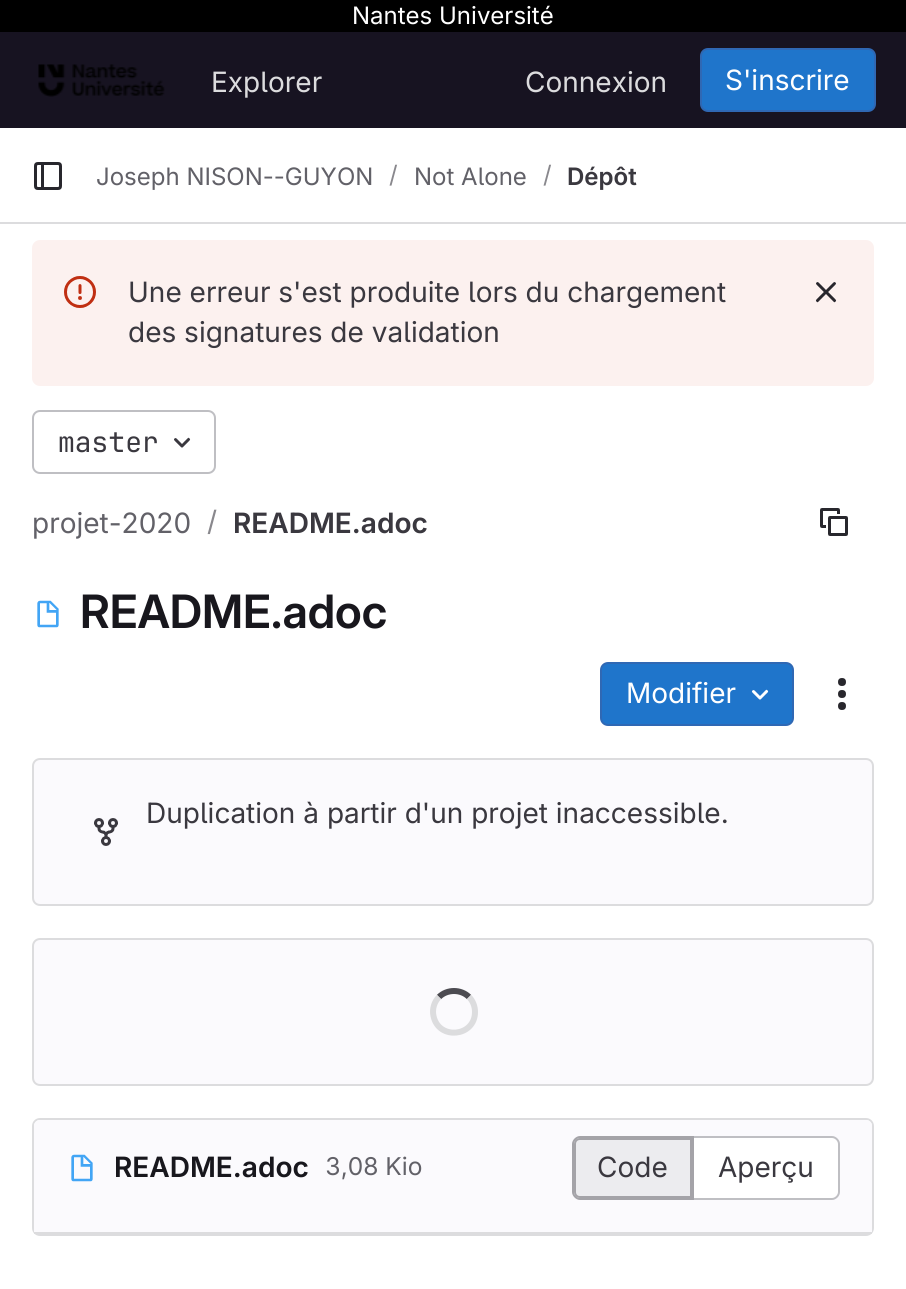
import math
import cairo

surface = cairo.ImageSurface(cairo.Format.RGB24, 906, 1289)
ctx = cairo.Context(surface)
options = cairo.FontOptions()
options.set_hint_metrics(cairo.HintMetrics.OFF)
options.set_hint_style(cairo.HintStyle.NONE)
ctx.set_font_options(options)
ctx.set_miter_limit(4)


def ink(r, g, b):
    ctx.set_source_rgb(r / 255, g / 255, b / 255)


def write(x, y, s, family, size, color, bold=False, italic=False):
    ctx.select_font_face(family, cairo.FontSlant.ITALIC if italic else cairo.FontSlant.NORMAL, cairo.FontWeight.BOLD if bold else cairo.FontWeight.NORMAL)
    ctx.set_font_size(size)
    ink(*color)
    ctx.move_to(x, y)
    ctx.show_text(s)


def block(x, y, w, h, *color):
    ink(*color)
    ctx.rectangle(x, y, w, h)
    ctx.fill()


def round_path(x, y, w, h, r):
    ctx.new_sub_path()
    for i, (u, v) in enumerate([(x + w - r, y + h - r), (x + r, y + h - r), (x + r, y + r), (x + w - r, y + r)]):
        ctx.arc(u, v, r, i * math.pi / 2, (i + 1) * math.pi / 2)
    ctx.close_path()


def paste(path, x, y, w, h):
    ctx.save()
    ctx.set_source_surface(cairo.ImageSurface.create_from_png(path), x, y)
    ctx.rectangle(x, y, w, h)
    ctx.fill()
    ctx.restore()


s1 = dict(family="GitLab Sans", size=24, color=(255, 255, 255))
s2 = dict(family="GitLab Sans", size=28, color=(220, 220, 222))
s3 = dict(family="GitLab Sans", size=28, color=(255, 255, 255))
s4 = dict(family="GitLab Sans", size=24, color=(98, 97, 104))
s5 = dict(family="GitLab Sans", size=24, color=(137, 136, 141))
s6 = dict(family="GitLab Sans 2 SemiBold", size=24, color=(58, 56, 63))
s7 = dict(family="GitLab Sans", size=28, color=(58, 56, 63))
s8 = dict(family="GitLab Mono", size=28, color=(58, 56, 63))
s9 = dict(family="GitLab Sans", size=28, color=(98, 97, 104))
s10 = dict(family="GitLab Sans", size=28, color=(137, 136, 141))
s11 = dict(family="GitLab Sans 2 SemiBold", size=28, color=(58, 56, 63))
s12 = dict(family="GitLab Sans SemiBold", size=46, color=(24, 23, 29))
s13 = dict(family="GitLab Sans 2 SemiBold", size=28, color=(24, 23, 29))
s14 = dict(family="GitLab Sans", size=24.5, color=(98, 97, 104))

ink(255, 255, 255)
ctx.paint()
block(0, 0, 906, 32, 0, 0, 0)
write(352, 24, "Nantes Université", **s1)
block(0, 32, 906, 96, 23, 19, 33)
paste("pic1.png", 38, 64, 127, 33)
write(211, 92, "Explorer", **s2)
write(525, 92, "Connexion", **s2)
ink(31, 117, 203)
round_path(701, 49, 174, 62, 7)
ctx.fill_preserve()
ink(47, 104, 180)
ctx.stroke()
write(725, 90, "S'inscrire", **s3)
block(0, 222, 906, 2, 220, 220, 222)
paste("pic2.png", 34, 162, 28, 28)
write(96, 185, "Joseph NISON--GUYON", **s4)
write(389, 183, "/", **s5)
write(414, 185, "Not Alone", **s4)
write(543, 183, "/", **s5)
write(567, 185, "Dépôt", **s6)
ink(252, 241, 239)
round_path(32, 240, 842, 146, 8)
ctx.fill()
paste("pic3.png", 64, 276, 32, 32)
write(128, 302, "Une erreur s'est produite lors du chargement", **s7)
write(128, 342, "des signatures de validation", **s7)
paste("pic4.png", 815, 282, 22, 21)
round_path(33, 411, 182, 62, 7)
ink(191, 191, 195)
ctx.stroke()
write(58, 452, "master", **s8)
paste("pic5.png", 174, 437, 17, 11)
write(32, 533, "projet-2020", **s9)
write(207, 531, "/", **s10)
write(233, 533, "README.adoc", **s11)
paste("pic6.png", 820, 508, 28, 28)
paste("pic7.png", 37, 600, 22, 28)
write(80, 628, "README.adoc", **s12)
ink(31, 117, 203)
round_path(601, 663, 192, 62, 7)
ctx.fill_preserve()
ink(47, 104, 180)
ctx.stroke()
write(626, 703, "Modifier", **s3)
paste("pic8.png", 751, 689, 18, 11)
paste("pic9.png", 838, 678, 8, 32)
ink(251, 250, 253)
round_path(33, 759, 840, 146, 7)
ctx.fill_preserve()
ink(220, 220, 222)
ctx.stroke()
write(146, 823, "Duplication à partir d'un projet inaccessible.", **s7)
paste("pic10.png", 94, 818, 24, 28)
ink(251, 250, 253)
round_path(33, 939, 840, 146, 7)
ctx.fill_preserve()
ink(220, 220, 222)
ctx.stroke()
ctx.new_path()
ctx.move_to(439, 997)
ctx.curve_to(447, 989, 461, 989, 469, 997)
ink(76, 75, 81)
ctx.set_line_width(6)
ctx.stroke()
ctx.new_path()
ctx.move_to(469, 997)
ctx.curve_to(473, 1001, 475, 1006.5, 475, 1012)
ctx.curve_to(475, 1037, 438.5, 1040.5, 433.5, 1016)
ctx.curve_to(432, 1009.5, 434, 1002, 439, 997)
ink(220, 220, 222)
ctx.stroke()
round_path(33, 1119, 840, 116, 7)
ctx.set_line_width(2)
ctx.stroke()
ink(251, 250, 253)
ctx.new_path()
ctx.move_to(40, 1120)
ctx.line_to(866, 1120)
ctx.curve_to(869.5, 1120, 872, 1122.5, 872, 1126)
ctx.line_to(872, 1234)
ctx.line_to(34, 1234)
ctx.line_to(34, 1126)
ctx.curve_to(34, 1122.5, 36.5, 1120, 40, 1120)
ctx.close_path()
ctx.fill()
block(34, 1232, 838, 2, 220, 220, 222)
paste("pic11.png", 71, 1154, 22, 28)
write(114, 1177, "README.adoc", **s13)
write(325, 1175, "3,08 Kio", **s14)
ink(236, 236, 239)
ctx.new_path()
ctx.move_to(580, 1139)
ctx.line_to(691, 1139)
ctx.line_to(691, 1197)
ctx.line_to(580, 1197)
ctx.curve_to(577, 1197, 575, 1195, 575, 1192)
ctx.line_to(575, 1144)
ctx.curve_to(575, 1141, 577, 1139, 580, 1139)
ctx.close_path()
ctx.fill_preserve()
ink(164, 163, 168)
ctx.stroke()
ctx.set_fill_rule(cairo.FillRule.EVEN_ODD)
ctx.new_path()
ctx.move_to(580, 1136)
ctx.line_to(692, 1136)
ctx.line_to(692, 1200)
ctx.line_to(580, 1200)
ctx.curve_to(576, 1200, 572, 1196, 572, 1192)
ctx.line_to(572, 1144)
ctx.curve_to(572, 1140, 576, 1136, 580, 1136)
ctx.close_path()
ctx.move_to(580, 1138)
ctx.line_to(692, 1138)
ctx.line_to(692, 1198)
ctx.line_to(580, 1198)
ctx.curve_to(577, 1198, 574, 1195, 574, 1192)
ctx.line_to(574, 1144)
ctx.curve_to(574, 1141, 577, 1138, 580, 1138)
ctx.close_path()
ctx.fill()
write(597, 1177, "Code", **s7)
ink(255, 255, 255)
ctx.new_path()
ctx.move_to(694, 1138)
ctx.line_to(832, 1138)
ctx.curve_to(835.5, 1138, 838, 1140.5, 838, 1144)
ctx.line_to(838, 1192)
ctx.curve_to(838, 1195.5, 835.5, 1198, 832, 1198)
ctx.line_to(694, 1198)
ctx.close_path()
ctx.fill()
ink(191, 191, 195)
ctx.new_path()
ctx.move_to(694, 1136)
ctx.line_to(832, 1136)
ctx.curve_to(836, 1136, 840, 1140, 840, 1144)
ctx.line_to(840, 1192)
ctx.curve_to(840, 1196, 836, 1200, 832, 1200)
ctx.line_to(694, 1200)
ctx.close_path()
ctx.move_to(694, 1138)
ctx.line_to(832, 1138)
ctx.curve_to(835, 1138, 838, 1141, 838, 1144)
ctx.line_to(838, 1192)
ctx.curve_to(838, 1195, 835, 1198, 832, 1198)
ctx.line_to(694, 1198)
ctx.close_path()
ctx.fill()
block(692, 1136, 2, 64, 164, 163, 168)
write(718, 1177, "Aperçu", **s7)
surface.write_to_png("screenshot.png")
